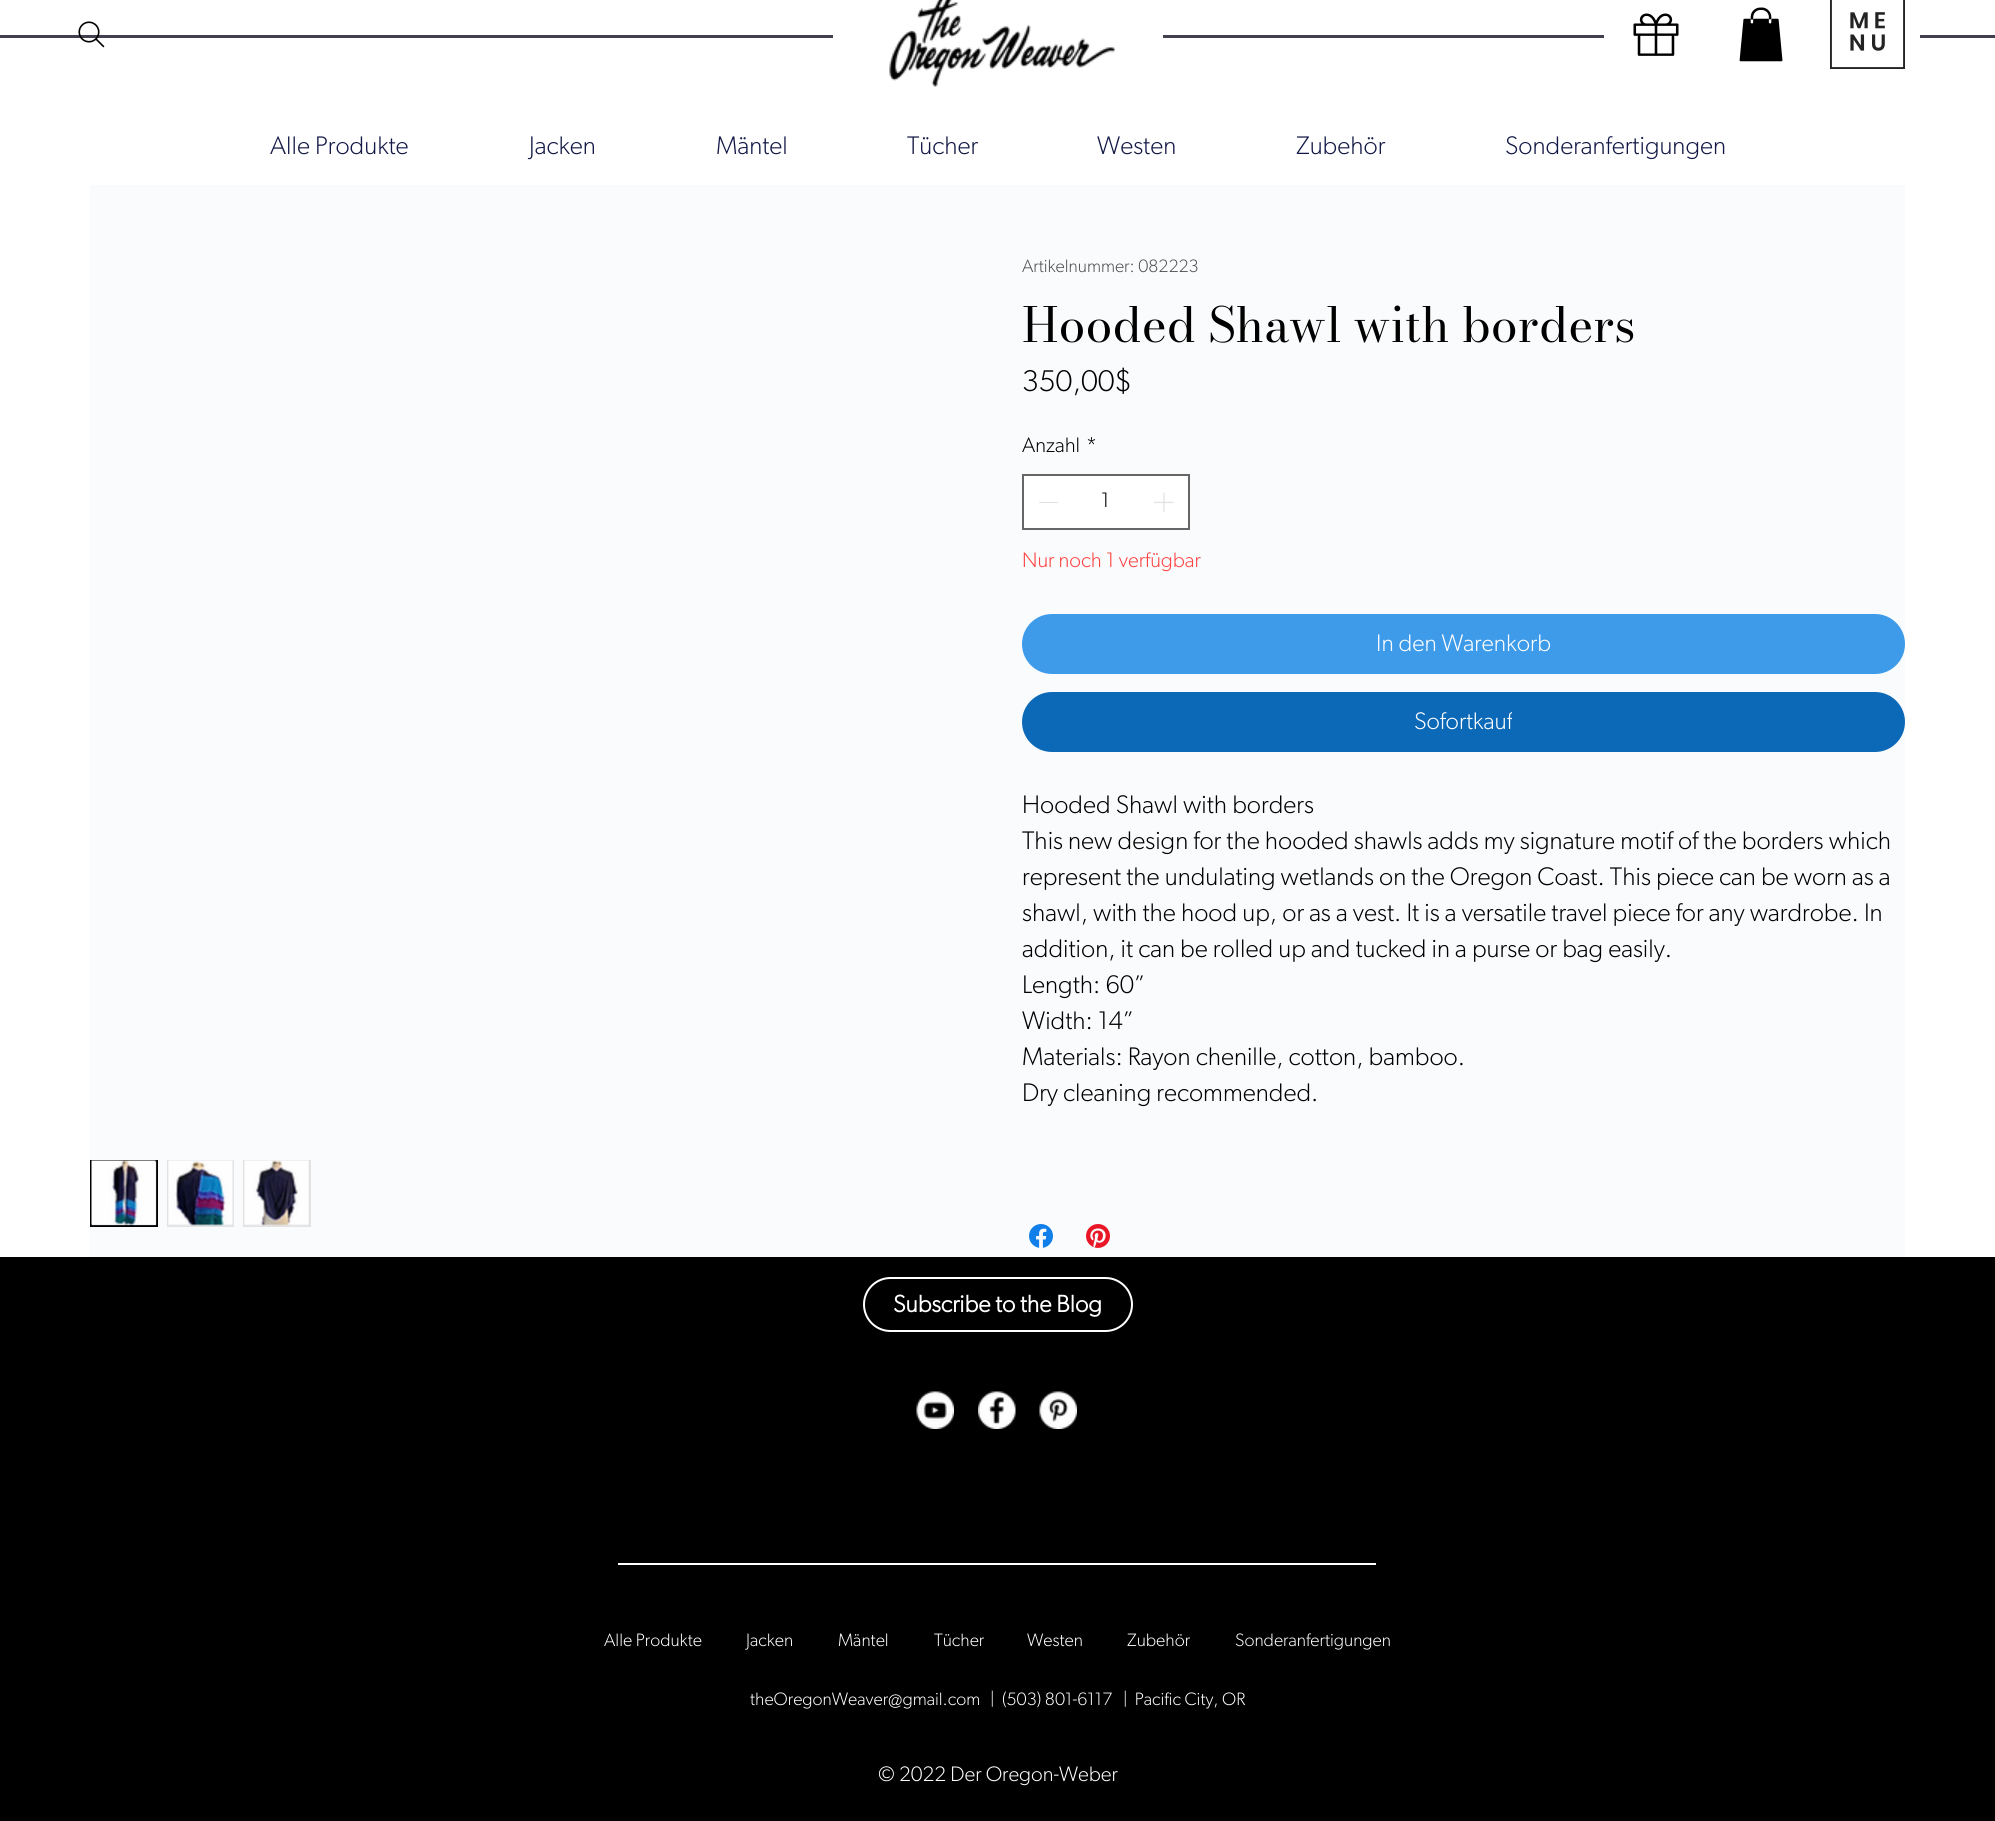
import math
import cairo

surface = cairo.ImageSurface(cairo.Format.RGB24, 1995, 1821)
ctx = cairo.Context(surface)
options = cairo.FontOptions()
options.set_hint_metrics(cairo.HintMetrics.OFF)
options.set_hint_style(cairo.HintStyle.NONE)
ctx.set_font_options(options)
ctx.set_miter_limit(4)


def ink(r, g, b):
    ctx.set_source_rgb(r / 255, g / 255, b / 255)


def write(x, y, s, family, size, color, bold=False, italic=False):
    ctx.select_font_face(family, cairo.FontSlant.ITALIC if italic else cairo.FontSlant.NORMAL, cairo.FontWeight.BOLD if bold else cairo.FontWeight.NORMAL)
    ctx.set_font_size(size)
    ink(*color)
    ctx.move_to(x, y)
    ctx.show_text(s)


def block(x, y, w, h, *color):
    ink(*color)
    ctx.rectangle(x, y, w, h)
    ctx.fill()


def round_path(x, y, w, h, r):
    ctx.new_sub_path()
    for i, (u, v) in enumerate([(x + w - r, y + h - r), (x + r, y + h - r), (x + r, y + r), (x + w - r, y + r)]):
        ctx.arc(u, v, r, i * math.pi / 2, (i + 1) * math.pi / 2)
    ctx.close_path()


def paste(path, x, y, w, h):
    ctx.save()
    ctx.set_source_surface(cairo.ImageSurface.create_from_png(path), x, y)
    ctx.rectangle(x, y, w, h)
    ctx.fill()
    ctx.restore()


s1 = dict(family="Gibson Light", size=25.5, color=(19, 25, 70))
s2 = dict(family="Gibson Light", size=18, color=(79, 79, 79))
s3 = dict(family="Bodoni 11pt", size=48, color=(0, 0, 0))
s4 = dict(family="Gibson Light", size=30, color=(0, 0, 0))
s5 = dict(family="Gibson Light", size=21, color=(0, 0, 0))
s6 = dict(family="Gibson Light", size=21, color=(255, 64, 64))
s7 = dict(family="Gibson Light", size=24, color=(255, 255, 255))
s8 = dict(family="Gibson Light", size=25.5, color=(0, 0, 0))
s9 = dict(family="Gibson", size=24, color=(255, 255, 255), bold=True)
s10 = dict(family="Gibson Light", size=18, color=(255, 255, 255))
s11 = dict(family="Gibson Light", size=21, color=(255, 255, 255))

ink(255, 255, 255)
ctx.paint()
block(0, 35, 1995, 3, 64, 64, 78)
block(833, 35, 330, 3, 255, 255, 255)
paste("pic1.png", 889, 0, 226, 87)
paste("pic2.png", 78, 21, 27, 27)
block(1604, 35, 316, 3, 255, 255, 255)
paste("pic3.png", 1633, 13, 46, 43)
paste("pic4.png", 1739, 7, 44, 55)
paste("pic5.png", 1830, 0, 75, 69)
write(270, 154, "Alle Produkte", **s1)
write(529, 154, "Jacken", **s1)
write(716, 154, "Mäntel", **s1)
write(907, 154, "Tücher", **s1)
write(1097, 154, "Westen", **s1)
write(1296, 154, "Zubehör", **s1)
write(1505, 154, "Sonderanfertigungen", **s1)
block(90, 185, 1815, 1072, 250, 251, 252)
write(1022, 272, "Artikelnummer: 082223", **s2)
write(1022, 342, "Hooded Shawl with borders", **s3)
write(1022, 391, "350,00$", **s4)
write(1022, 452, "Anzahl", **s5)
write(1086, 452, "*", **s5)
ink(255, 255, 255)
ctx.rectangle(1023, 475, 166, 54)
ctx.fill_preserve()
ink(102, 102, 102)
ctx.stroke()
block(1039, 502, 19, 1, 227, 227, 227)
write(1101, 507, "1", **s5)
paste("pic6.png", 1154, 492, 20, 21)
write(1022, 567, "Nur noch 1 verfügbar", **s6)
ink(61, 155, 233)
round_path(1022, 614, 883, 60, 30)
ctx.fill()
write(1376, 651, "In den Warenkorb", **s7)
ink(11, 105, 184)
round_path(1022, 692, 883, 60, 30)
ctx.fill()
ctx.save()
ctx.rectangle(1415, 707, 97, 30)
ctx.clip()
write(1414, 729, "Sofortkauf", **s7)
ctx.restore()
write(1022, 813, "Hooded Shawl with borders", **s8)
write(1022, 849, "This new design for the hooded shawls adds my signature motif of the borders which", **s8)
write(1022, 885, "represent the undulating wetlands on the Oregon Coast. This piece can be worn as a", **s8)
write(1022, 921, "shawl, with the hood up, or as a vest. It is a versatile travel piece for any wardrobe. In", **s8)
write(1022, 957, "addition, it can be rolled up and tucked in a purse or bag easily.", **s8)
write(1022, 993, "Length: 60”", **s8)
write(1022, 1029, "Width: 14”", **s8)
write(1022, 1065, "Materials: Rayon chenille, cotton, bamboo.", **s8)
write(1022, 1101, "Dry cleaning recommended.", **s8)
paste("pic7.png", 1029, 1224, 24, 24)
paste("pic8.png", 1086, 1224, 24, 24)
ink(227, 227, 227)
ctx.rectangle(91, 1161, 66, 65)
ctx.fill_preserve()
ink(0, 0, 0)
ctx.stroke()
paste("pic9.png", 91, 1160, 66, 66)
block(167, 1160, 67, 67, 227, 227, 227)
paste("pic10.png", 168, 1160, 65, 66)
block(243, 1160, 68, 67, 227, 227, 227)
paste("pic11.png", 244, 1160, 65, 66)
block(0, 1257, 1995, 564, 0, 0, 0)
round_path(864, 1278, 268, 53, 26.5)
ink(255, 255, 255)
ctx.stroke()
write(893, 1312, "Subscribe to the Blog", **s9)
paste("pic12.png", 916, 1391, 38, 38)
paste("pic13.png", 978, 1391, 38, 38)
paste("pic14.png", 1039, 1391, 38, 38)
block(618, 1563, 758, 2, 255, 255, 255)
write(604, 1646, "Alle Produkte", **s10)
write(746, 1646, "Jacken", **s10)
write(838, 1646, "Mäntel", **s10)
write(934, 1646, "Tücher", **s10)
write(1027, 1646, "Westen", **s10)
write(1127, 1646, "Zubehör", **s10)
write(1235, 1646, "Sonderanfertigungen", **s10)
write(750, 1705, "theOregonWeaver@gmail.com", **s10)
write(990, 1705, "|", **s10)
write(1002, 1705, "(503) 801-6117", **s10)
write(1123, 1705, "|  Pacific City, OR", **s10)
write(878, 1781, "© 2022 Der Oregon-Weber", **s11)
surface.write_to_png("screenshot.png")
